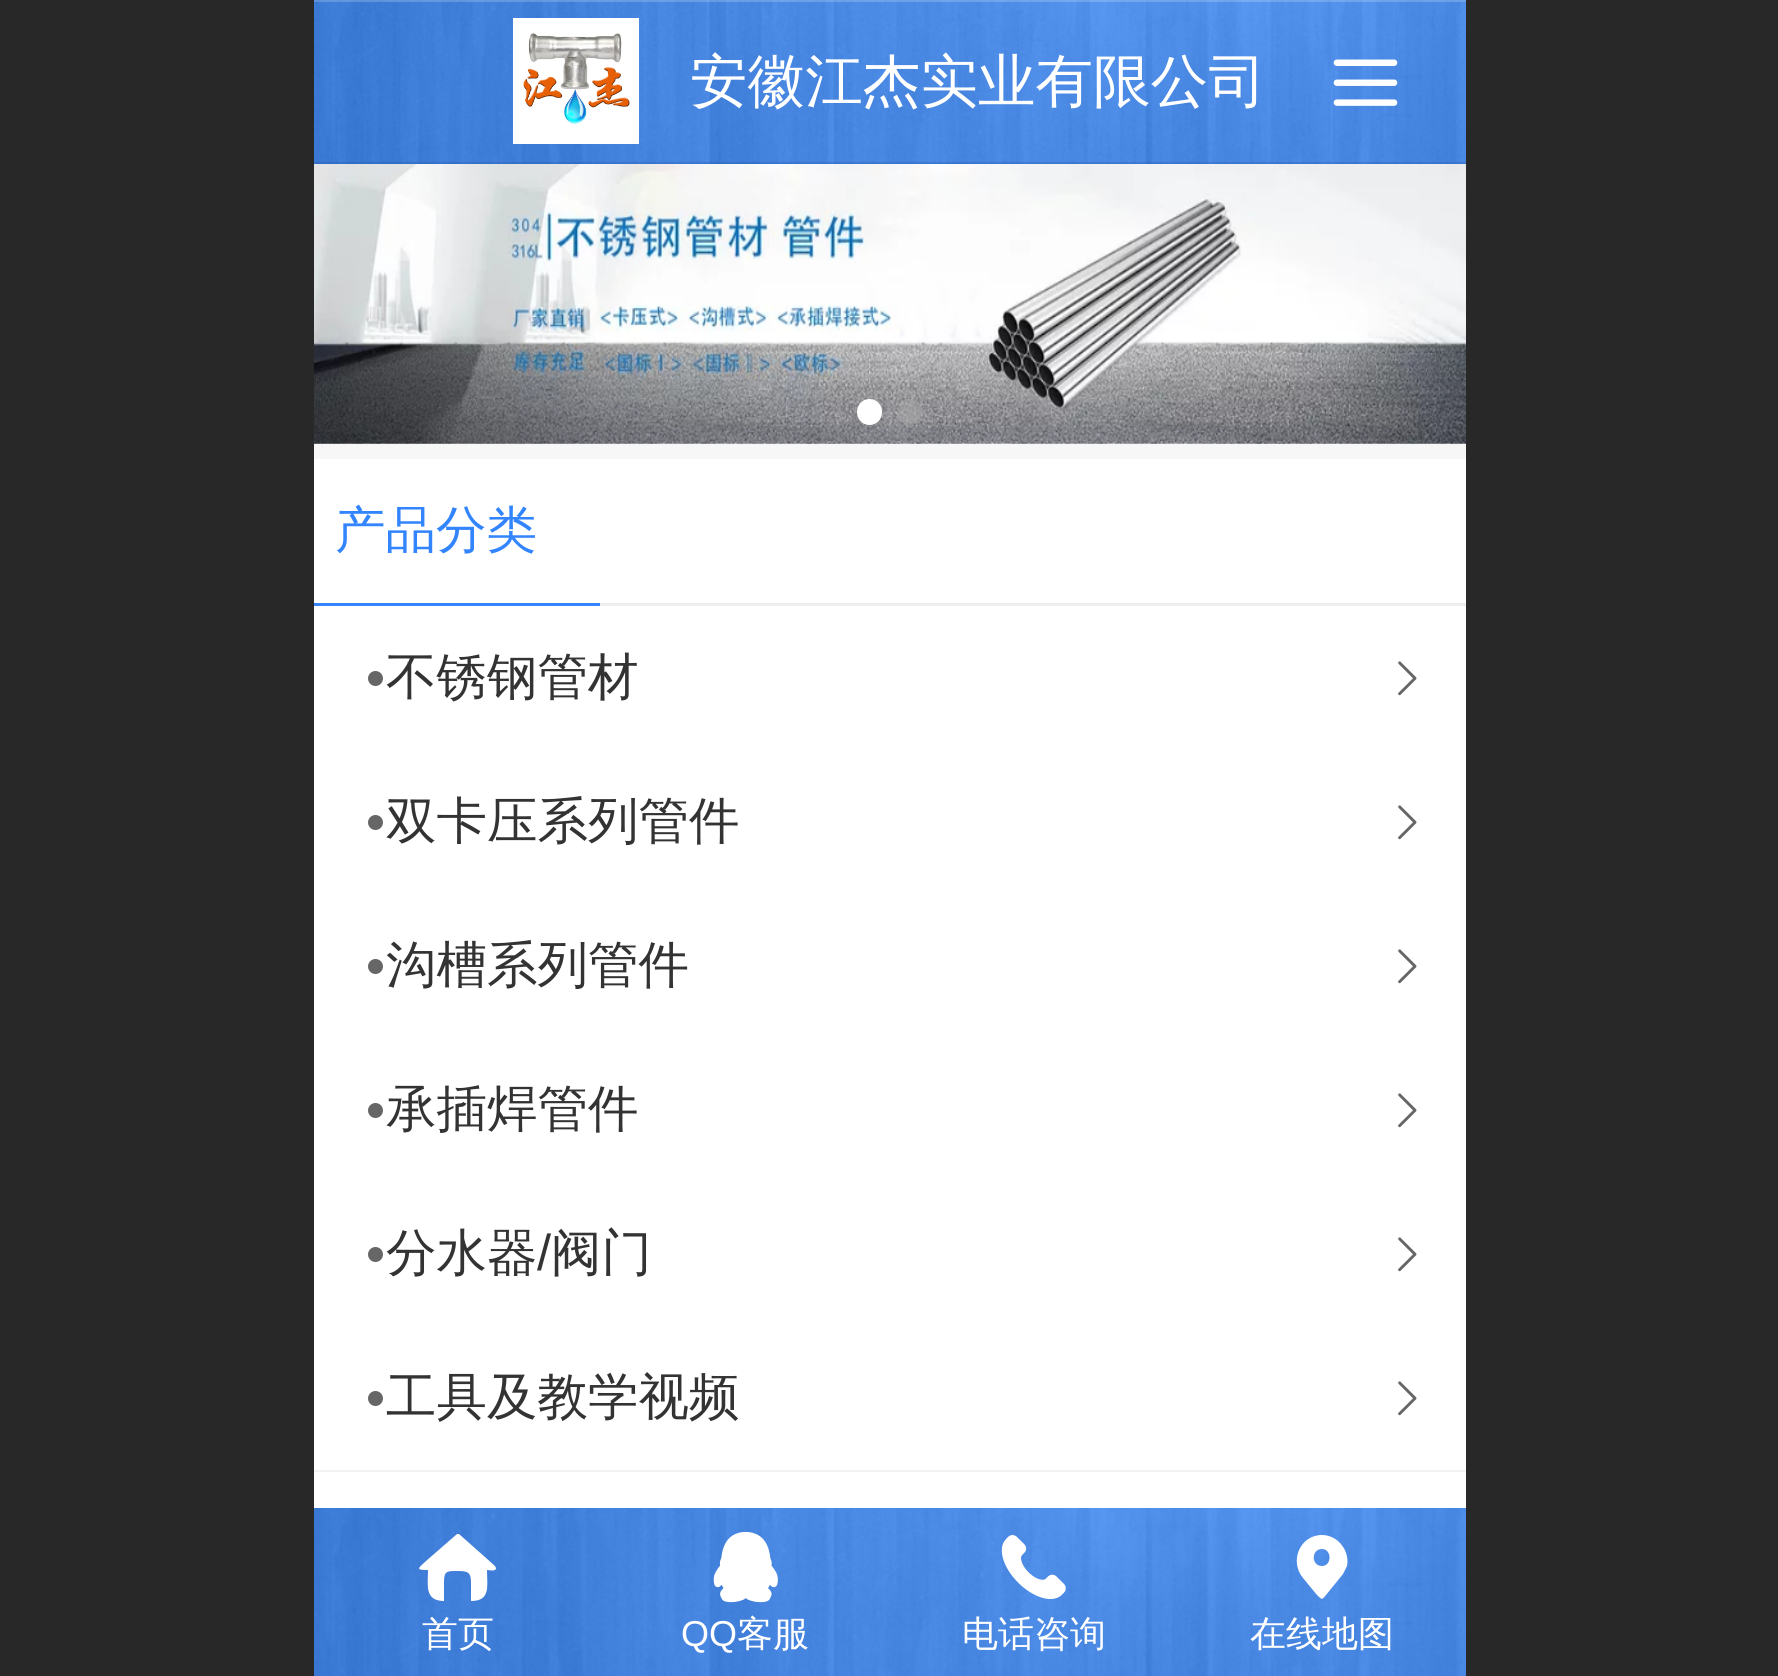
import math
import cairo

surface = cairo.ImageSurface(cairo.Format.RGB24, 1778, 1676)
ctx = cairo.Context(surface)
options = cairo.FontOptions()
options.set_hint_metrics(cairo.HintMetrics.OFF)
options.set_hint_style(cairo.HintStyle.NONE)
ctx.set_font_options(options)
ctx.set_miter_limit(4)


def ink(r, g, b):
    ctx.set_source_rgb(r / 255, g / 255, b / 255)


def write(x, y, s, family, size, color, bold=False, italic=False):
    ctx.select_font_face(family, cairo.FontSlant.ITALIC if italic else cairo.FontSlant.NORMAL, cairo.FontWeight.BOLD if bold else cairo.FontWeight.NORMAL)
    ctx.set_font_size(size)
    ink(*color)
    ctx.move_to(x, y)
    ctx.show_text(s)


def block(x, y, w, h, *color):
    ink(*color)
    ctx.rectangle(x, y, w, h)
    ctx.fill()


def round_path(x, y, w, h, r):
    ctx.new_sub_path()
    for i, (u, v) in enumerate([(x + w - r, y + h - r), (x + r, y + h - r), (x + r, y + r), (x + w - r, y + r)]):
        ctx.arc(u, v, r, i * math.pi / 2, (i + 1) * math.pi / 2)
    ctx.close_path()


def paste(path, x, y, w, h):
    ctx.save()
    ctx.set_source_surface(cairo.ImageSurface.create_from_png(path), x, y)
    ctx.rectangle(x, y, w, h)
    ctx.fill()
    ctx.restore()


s1 = dict(family="WenQuanYi Zen Hei Medium", size=57.6, color=(255, 255, 255))
s2 = dict(family="WenQuanYi Zen Hei Medium", size=50.5, color=(50, 133, 255))
s3 = dict(family="WenQuanYi Zen Hei Medium", size=50.5, color=(51, 51, 51))
s4 = dict(family="Liberation Sans", size=50.5, color=(51, 51, 51))
s5 = dict(family="WenQuanYi Zen Hei Medium", size=36, color=(255, 255, 255))
s6 = dict(family="Liberation Sans", size=36, color=(255, 255, 255))

ink(255, 255, 255)
ctx.paint()
block(0, 0, 314, 1676, 40, 40, 40)
block(314, 0, 1152, 164, 50, 133, 255)
paste("pic1.png", 314, 0, 1152, 164)
ctx.set_source_rgba(1, 1, 1, 0.2)
ctx.rectangle(314, 0, 1152, 2)
ctx.fill()
ctx.set_source_rgba(0, 0, 0, 0.1)
ctx.rectangle(314, 162, 1152, 2)
ctx.fill()
paste("pic2.png", 513, 18, 126, 126)
write(690, 101, "安徽江杰实业有限公司", **s1)
paste("pic3.png", 1333, 59, 65, 47)
paste("pic4.png", 314, 164, 1152, 280)
round_path(857, 399, 25, 26, 12.5)
ctx.fill()
ctx.set_source_rgba(0.671, 0.671, 0.671, 0.5)
ctx.arc(910, 412, 13, 0, 2 * math.pi)
ctx.fill()
block(314, 444, 1152, 15, 247, 247, 247)
block(600, 603, 866, 3, 238, 238, 238)
block(314, 603, 286, 3, 50, 133, 255)
write(335, 547, "产品分类", **s2)
ink(102, 102, 102)
ctx.new_path()
ctx.arc(375.5, 678.5, 7.5, 0, 2 * math.pi)
ctx.fill()
write(386, 694, "不锈钢管材", **s3)
paste("pic5.png", 1398, 661, 19, 35)
ink(102, 102, 102)
ctx.arc(375.5, 822.5, 7.5, 0, 2 * math.pi)
ctx.fill()
write(386, 838, "双卡压系列管件", **s3)
paste("pic5.png", 1398, 805, 19, 35)
ink(102, 102, 102)
ctx.arc(375.5, 966.5, 7.5, 0, 2 * math.pi)
ctx.fill()
write(386, 982, "沟槽系列管件", **s3)
paste("pic5.png", 1398, 949, 19, 35)
ink(102, 102, 102)
ctx.arc(375.5, 1110.5, 7.5, 0, 2 * math.pi)
ctx.fill()
write(386, 1126, "承插焊管件", **s3)
paste("pic5.png", 1398, 1093, 19, 35)
ink(102, 102, 102)
ctx.arc(375.5, 1254.5, 7.5, 0, 2 * math.pi)
ctx.fill()
write(386, 1270, "分水器", **s3)
write(537, 1270, "/", **s4)
write(551, 1270, "阀门", **s3)
paste("pic5.png", 1398, 1237, 19, 35)
ink(102, 102, 102)
ctx.arc(375.5, 1398.5, 7.5, 0, 2 * math.pi)
ctx.fill()
write(386, 1414, "工具及教学视频", **s3)
paste("pic5.png", 1398, 1381, 19, 35)
block(314, 1470, 1152, 2, 242, 242, 242)
block(314, 1508, 1152, 168, 50, 133, 255)
paste("pic6.png", 314, 1508, 1152, 168)
ink(255, 255, 255)
ctx.new_path()
ctx.move_to(495, 1566)
ctx.line_to(459, 1534)
ctx.line_to(457, 1534)
ctx.line_to(426, 1561)
ctx.curve_to(417, 1569, 416, 1570, 428, 1570)
ctx.curve_to(428, 1584, 424, 1601, 444, 1601)
ctx.line_to(444, 1582)
ctx.curve_to(444, 1571, 447, 1571, 457, 1571)
ctx.curve_to(468, 1571, 471, 1572, 471, 1583)
ctx.line_to(471, 1601)
ctx.curve_to(491, 1601, 487, 1586, 487, 1570)
ctx.curve_to(489, 1570, 496, 1572, 496, 1568)
ctx.close_path()
ctx.fill()
write(422, 1646, "首页", **s5)
paste("pic7.png", 713, 1531, 65, 72)
write(681, 1646, "QQ", **s6)
write(737, 1646, "客服", **s5)
paste("pic8.png", 1001, 1535, 65, 65)
write(962, 1646, "电话咨询", **s5)
ctx.new_path()
ctx.move_to(1322, 1535)
ctx.curve_to(1300, 1535, 1289, 1561, 1303, 1578)
ctx.line_to(1317, 1595)
ctx.curve_to(1322, 1600, 1322, 1600, 1326, 1595)
ctx.line_to(1343, 1574)
ctx.line_to(1347, 1566)
ctx.curve_to(1350, 1551, 1338, 1535, 1322, 1535)
ctx.close_path()
ctx.move_to(1322, 1566)
ctx.curve_to(1311, 1566, 1311, 1549, 1322, 1549)
ctx.curve_to(1332, 1549, 1332, 1566, 1322, 1566)
ctx.close_path()
ctx.fill()
write(1250, 1646, "在线地图", **s5)
block(1466, 0, 312, 1676, 40, 40, 40)
surface.write_to_png("screenshot.png")
